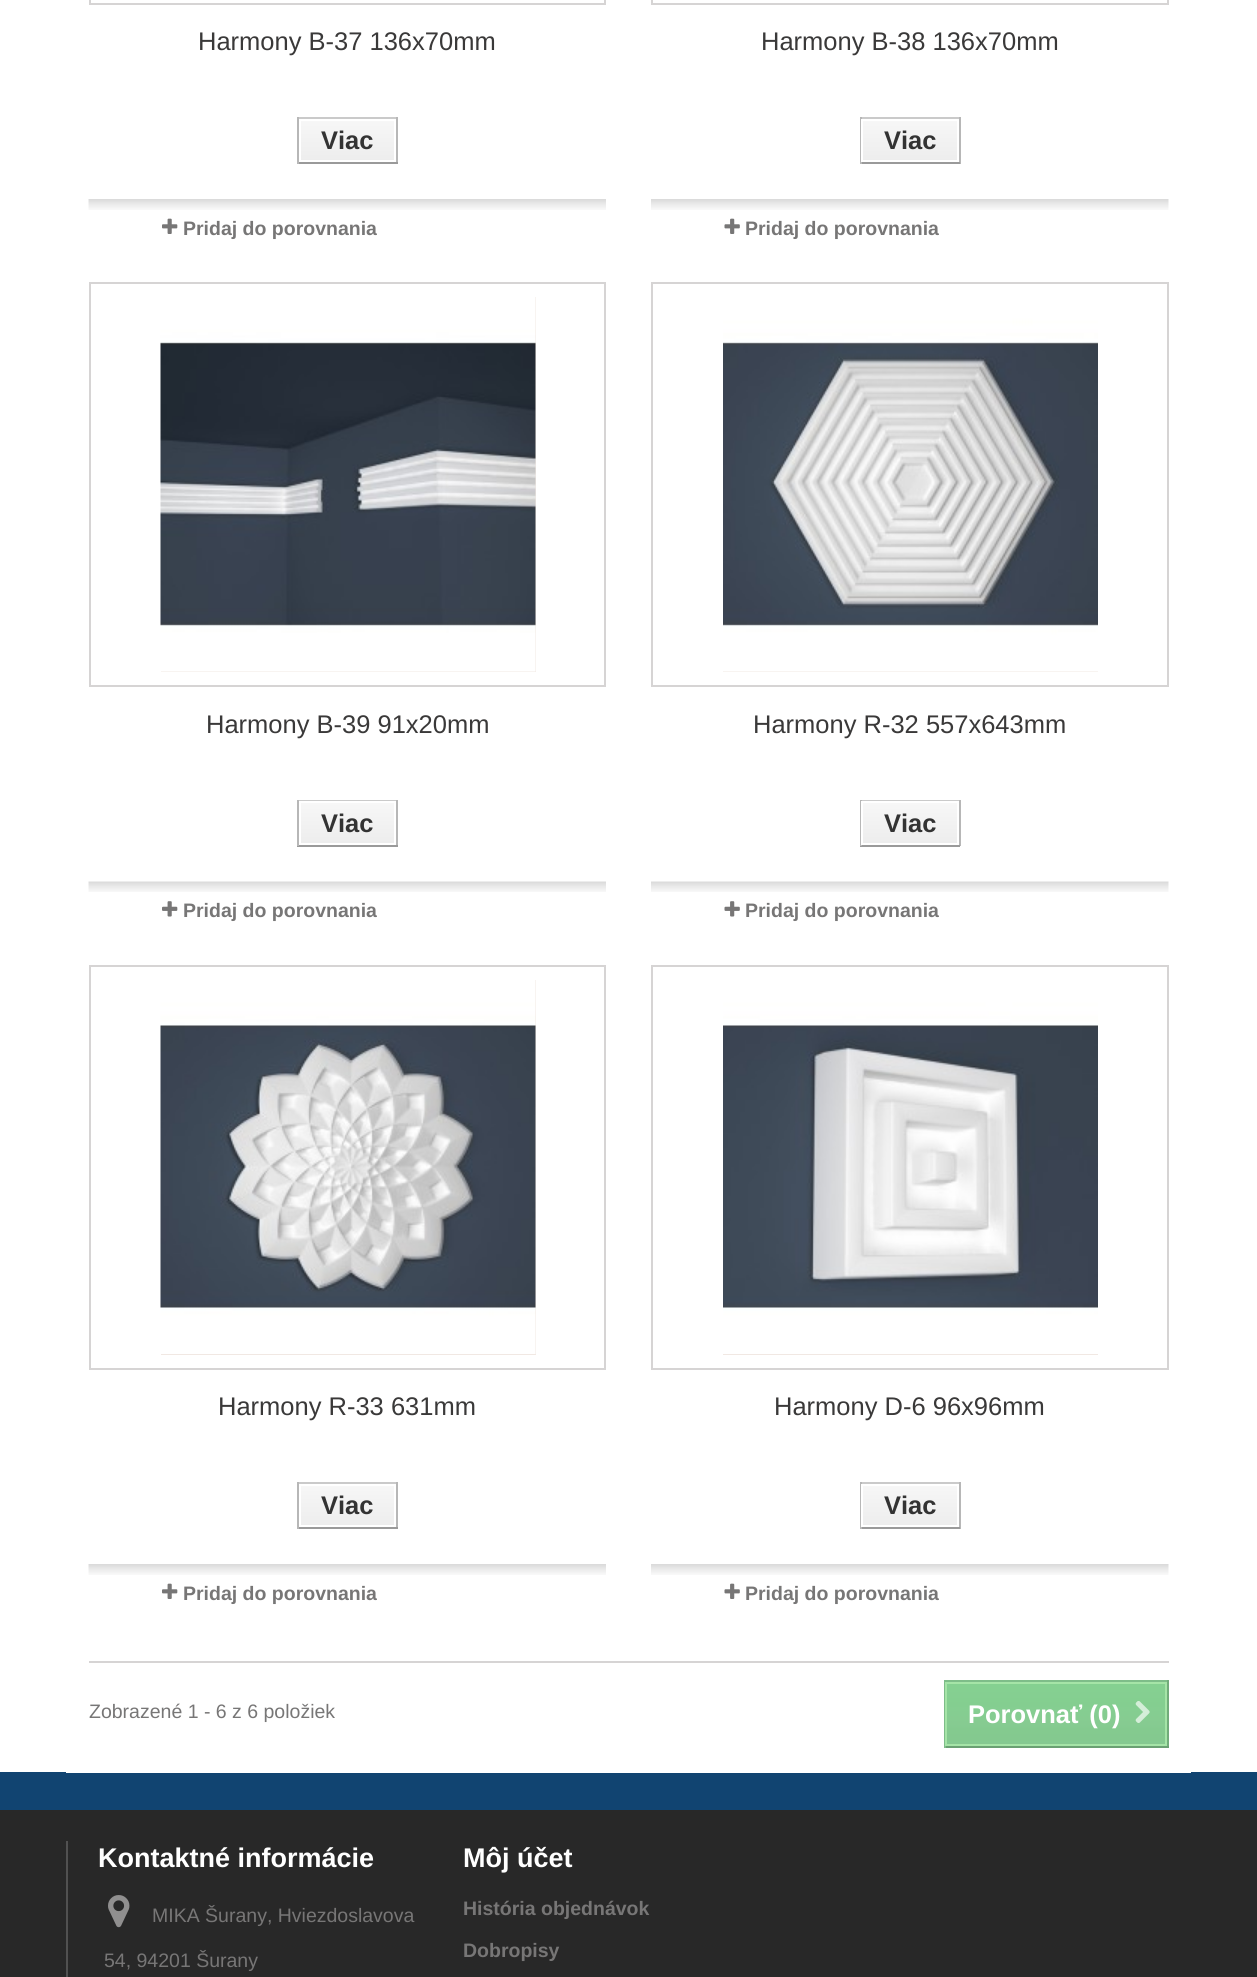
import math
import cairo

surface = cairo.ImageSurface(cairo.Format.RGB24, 1257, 1977)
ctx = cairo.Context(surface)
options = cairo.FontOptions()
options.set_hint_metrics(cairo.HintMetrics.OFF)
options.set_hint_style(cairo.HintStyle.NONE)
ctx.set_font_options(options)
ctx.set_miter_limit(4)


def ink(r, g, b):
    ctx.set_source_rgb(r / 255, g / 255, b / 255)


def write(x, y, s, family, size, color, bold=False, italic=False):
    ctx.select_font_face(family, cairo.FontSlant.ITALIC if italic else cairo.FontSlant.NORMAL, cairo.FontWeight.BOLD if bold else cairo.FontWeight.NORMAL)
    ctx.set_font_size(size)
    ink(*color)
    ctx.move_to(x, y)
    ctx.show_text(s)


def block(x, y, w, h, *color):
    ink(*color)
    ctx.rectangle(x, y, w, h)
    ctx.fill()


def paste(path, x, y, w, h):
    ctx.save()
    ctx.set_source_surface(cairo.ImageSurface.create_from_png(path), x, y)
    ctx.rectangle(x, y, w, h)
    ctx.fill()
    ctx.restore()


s1 = dict(family="Liberation Sans", size=25.5, color=(58, 57, 57))
s2 = dict(family="Liberation Sans", size=25.5, color=(51, 51, 51), bold=True)
s3 = dict(family="Liberation Sans", size=19.5, color=(119, 118, 118), bold=True)
s4 = dict(family="Liberation Sans", size=19.5, color=(119, 118, 118))
s5 = dict(family="Liberation Sans", size=25.5, color=(255, 255, 255), bold=True)
s6 = dict(family="Liberation Sans", size=27, color=(255, 255, 255), bold=True)

ink(40, 40, 40)
ctx.paint()
block(0, 0, 1257, 1772, 255, 255, 255)
block(0, 1772, 1257, 38, 17, 68, 113)
block(66, 1772, 1125, 1, 255, 255, 255)
ctx.rectangle(90, -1, 515, 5)
ink(214, 212, 212)
ctx.stroke()
write(198, 50, "Harmony B-37 136x70mm", **s1)
block(297, 117, 101, 2, 202, 202, 202)
block(396, 117, 2, 47, 183, 183, 183)
block(297, 162, 101, 2, 154, 154, 154)
block(297, 117, 2, 47, 183, 183, 183)
gradient = cairo.LinearGradient(347, 120, 347, 161)
gradient.add_color_stop_rgba(0, 0.969, 0.969, 0.969, 1)
gradient.add_color_stop_rgba(1, 0.929, 0.929, 0.929, 1)
ctx.set_source(gradient)
ctx.rectangle(301, 121, 93, 39)
ctx.fill()
write(321, 149, "Viac", **s2)
paste("pic1.png", 88, 199, 518, 11)
paste("pic2.png", 162, 218, 16, 16)
write(183, 235, "Pridaj do porovnania", **s3)
ctx.rectangle(652, -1, 516, 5)
ink(214, 212, 212)
ctx.stroke()
write(761, 50, "Harmony B-38 136x70mm", **s1)
block(860, 117, 100, 2, 202, 202, 202)
block(959, 117, 2, 47, 183, 183, 183)
block(860, 162, 100, 2, 154, 154, 154)
block(860, 117, 2, 47, 183, 183, 183)
gradient = cairo.LinearGradient(910, 120, 910, 161)
gradient.add_color_stop_rgba(0, 0.969, 0.969, 0.969, 1)
gradient.add_color_stop_rgba(1, 0.929, 0.929, 0.929, 1)
ctx.set_source(gradient)
ctx.rectangle(863, 121, 94, 39)
ctx.fill()
ctx.rectangle(862, 120, 96, 41)
ink(255, 255, 255)
ctx.stroke()
write(884, 149, "Viac", **s2)
paste("pic3.png", 651, 199, 518, 11)
paste("pic4.png", 724, 218, 16, 16)
write(745, 235, "Pridaj do porovnania", **s3)
ctx.rectangle(90, 283, 515, 403)
ink(214, 212, 212)
ctx.stroke()
block(161, 297, 375, 375, 241, 232, 227)
paste("pic5.png", 160, 297, 376, 375)
write(206, 733, "Harmony B-39 91x20mm", **s1)
block(297, 800, 101, 1, 202, 202, 202)
block(396, 800, 2, 46, 183, 183, 183)
block(297, 845, 101, 2, 154, 154, 154)
block(297, 800, 2, 46, 183, 183, 183)
gradient = cairo.LinearGradient(347, 803, 347, 843)
gradient.add_color_stop_rgba(0, 0.969, 0.969, 0.969, 1)
gradient.add_color_stop_rgba(1, 0.929, 0.929, 0.929, 1)
ctx.set_source(gradient)
ctx.rectangle(301, 803, 93, 40)
ctx.fill()
write(321, 832, "Viac", **s2)
paste("pic6.png", 88, 881, 518, 11)
paste("pic7.png", 162, 901, 16, 16)
write(183, 917, "Pridaj do porovnania", **s3)
ctx.rectangle(652, 283, 516, 403)
ink(214, 212, 212)
ctx.stroke()
block(723, 671, 375, 1, 241, 232, 227)
paste("pic8.png", 723, 297, 375, 375)
write(753, 733, "Harmony R-32 557x643mm", **s1)
block(860, 800, 100, 1, 202, 202, 202)
block(959, 800, 2, 46, 183, 183, 183)
block(860, 845, 100, 2, 154, 154, 154)
block(860, 800, 2, 46, 183, 183, 183)
gradient = cairo.LinearGradient(910, 803, 910, 843)
gradient.add_color_stop_rgba(0, 0.969, 0.969, 0.969, 1)
gradient.add_color_stop_rgba(1, 0.929, 0.929, 0.929, 1)
ctx.set_source(gradient)
ctx.rectangle(863, 803, 94, 40)
ctx.fill()
ctx.rectangle(862, 802, 96, 42)
ink(255, 255, 255)
ctx.stroke()
write(884, 832, "Viac", **s2)
paste("pic9.png", 651, 881, 518, 11)
paste("pic10.png", 724, 901, 16, 16)
write(745, 917, "Pridaj do porovnania", **s3)
ctx.rectangle(90, 966, 515, 403)
ink(214, 212, 212)
ctx.stroke()
block(161, 980, 375, 375, 241, 232, 227)
paste("pic11.png", 160, 980, 376, 374)
write(218, 1415, "Harmony R-33 631mm", **s1)
block(297, 1482, 101, 2, 202, 202, 202)
block(396, 1482, 2, 47, 183, 183, 183)
block(297, 1527, 101, 2, 154, 154, 154)
block(297, 1482, 2, 47, 183, 183, 183)
gradient = cairo.LinearGradient(347, 1485, 347, 1526)
gradient.add_color_stop_rgba(0, 0.969, 0.969, 0.969, 1)
gradient.add_color_stop_rgba(1, 0.929, 0.929, 0.929, 1)
ctx.set_source(gradient)
ctx.rectangle(301, 1486, 93, 39)
ctx.fill()
write(321, 1514, "Viac", **s2)
paste("pic1.png", 88, 1564, 518, 11)
paste("pic2.png", 162, 1583, 16, 16)
write(183, 1600, "Pridaj do porovnania", **s3)
ctx.rectangle(652, 966, 516, 403)
ink(214, 212, 212)
ctx.stroke()
block(723, 1354, 375, 1, 241, 232, 227)
paste("pic12.png", 723, 980, 375, 374)
write(774, 1415, "Harmony D-6 96x96mm", **s1)
block(860, 1482, 100, 2, 202, 202, 202)
block(959, 1482, 2, 47, 183, 183, 183)
block(860, 1527, 100, 2, 154, 154, 154)
block(860, 1482, 2, 47, 183, 183, 183)
gradient = cairo.LinearGradient(910, 1485, 910, 1526)
gradient.add_color_stop_rgba(0, 0.969, 0.969, 0.969, 1)
gradient.add_color_stop_rgba(1, 0.929, 0.929, 0.929, 1)
ctx.set_source(gradient)
ctx.rectangle(863, 1486, 94, 39)
ctx.fill()
ctx.rectangle(862, 1485, 96, 41)
ink(255, 255, 255)
ctx.stroke()
write(884, 1514, "Viac", **s2)
paste("pic3.png", 651, 1564, 518, 11)
paste("pic4.png", 724, 1583, 16, 16)
write(745, 1600, "Pridaj do porovnania", **s3)
block(89, 1661, 1080, 2, 214, 212, 212)
write(89, 1718, "Zobrazené 1 - 6 z 6 položiek", **s4)
gradient = cairo.LinearGradient(1056, 1682, 1056, 1746)
gradient.add_color_stop_rgba(0, 0.522, 0.816, 0.565, 1)
gradient.add_color_stop_rgba(0.02, 0.518, 0.816, 0.573, 1)
gradient.add_color_stop_rgba(0.04, 0.518, 0.82, 0.565, 1)
gradient.add_color_stop_rgba(0.06, 0.522, 0.816, 0.569, 1)
gradient.add_color_stop_rgba(0.38, 0.518, 0.808, 0.565, 1)
gradient.add_color_stop_rgba(0.4, 0.522, 0.808, 0.569, 1)
gradient.add_color_stop_rgba(0.66, 0.525, 0.796, 0.569, 1)
gradient.add_color_stop_rgba(0.74, 0.518, 0.792, 0.561, 1)
gradient.add_color_stop_rgba(0.91, 0.518, 0.788, 0.561, 1)
gradient.add_color_stop_rgba(0.94, 0.518, 0.792, 0.569, 1)
gradient.add_color_stop_rgba(0.96, 0.522, 0.784, 0.565, 1)
gradient.add_color_stop_rgba(1, 0.518, 0.788, 0.561, 1)
ctx.set_source(gradient)
ctx.rectangle(947, 1684, 218, 60)
ctx.fill()
block(944, 1680, 225, 2, 126, 189, 137)
block(1167, 1680, 2, 68, 113, 172, 122)
block(944, 1746, 225, 2, 106, 160, 115)
block(944, 1680, 2, 68, 126, 189, 137)
ctx.rectangle(946, 1683, 220, 62)
ink(165, 228, 167)
ctx.stroke()
write(968, 1723, "Porovnať (0)", **s5)
paste("pic13.png", 1135, 1701, 15, 22)
block(66, 1841, 2, 136, 81, 81, 81)
write(98, 1867, "Kontaktné informácie", **s6)
paste("pic14.png", 108, 1895, 22, 33)
write(152, 1922, "MIKA Šurany, Hviezdoslavova", **s4)
write(104, 1967, "54, 94201 Šurany", **s4)
write(463, 1867, "Môj účet", **s6)
write(463, 1915, "História objednávok", **s3)
write(463, 1957, "Dobropisy", **s3)
surface.write_to_png("screenshot.png")
